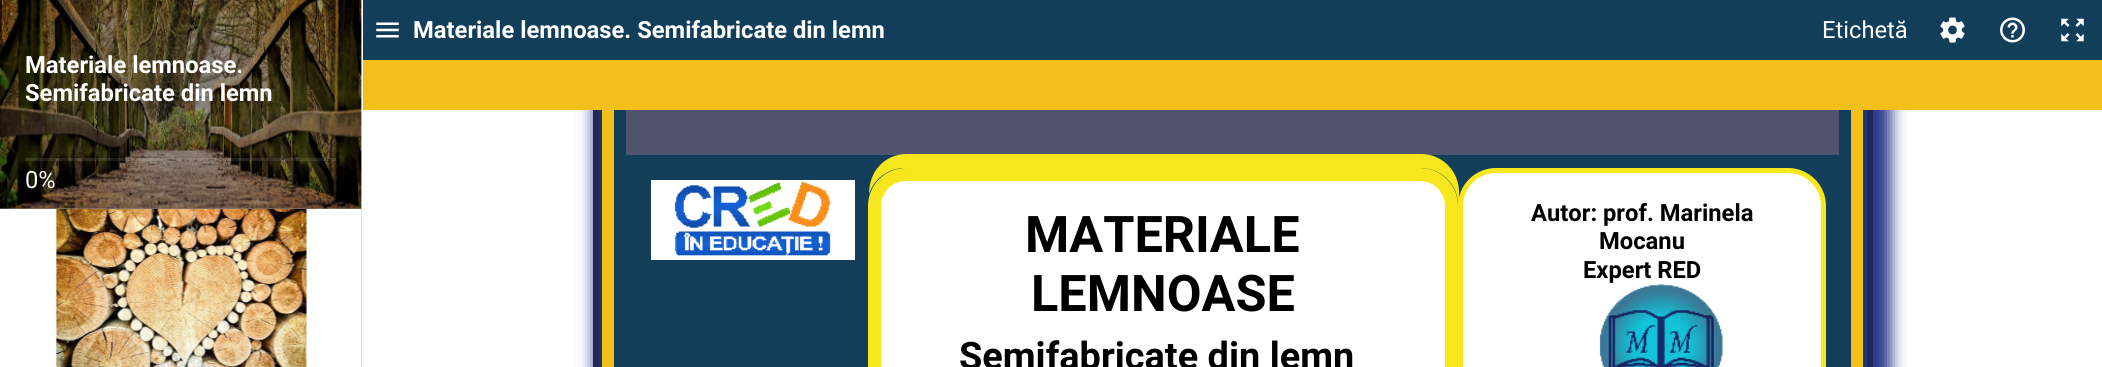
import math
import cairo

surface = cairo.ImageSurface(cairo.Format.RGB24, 2102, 367)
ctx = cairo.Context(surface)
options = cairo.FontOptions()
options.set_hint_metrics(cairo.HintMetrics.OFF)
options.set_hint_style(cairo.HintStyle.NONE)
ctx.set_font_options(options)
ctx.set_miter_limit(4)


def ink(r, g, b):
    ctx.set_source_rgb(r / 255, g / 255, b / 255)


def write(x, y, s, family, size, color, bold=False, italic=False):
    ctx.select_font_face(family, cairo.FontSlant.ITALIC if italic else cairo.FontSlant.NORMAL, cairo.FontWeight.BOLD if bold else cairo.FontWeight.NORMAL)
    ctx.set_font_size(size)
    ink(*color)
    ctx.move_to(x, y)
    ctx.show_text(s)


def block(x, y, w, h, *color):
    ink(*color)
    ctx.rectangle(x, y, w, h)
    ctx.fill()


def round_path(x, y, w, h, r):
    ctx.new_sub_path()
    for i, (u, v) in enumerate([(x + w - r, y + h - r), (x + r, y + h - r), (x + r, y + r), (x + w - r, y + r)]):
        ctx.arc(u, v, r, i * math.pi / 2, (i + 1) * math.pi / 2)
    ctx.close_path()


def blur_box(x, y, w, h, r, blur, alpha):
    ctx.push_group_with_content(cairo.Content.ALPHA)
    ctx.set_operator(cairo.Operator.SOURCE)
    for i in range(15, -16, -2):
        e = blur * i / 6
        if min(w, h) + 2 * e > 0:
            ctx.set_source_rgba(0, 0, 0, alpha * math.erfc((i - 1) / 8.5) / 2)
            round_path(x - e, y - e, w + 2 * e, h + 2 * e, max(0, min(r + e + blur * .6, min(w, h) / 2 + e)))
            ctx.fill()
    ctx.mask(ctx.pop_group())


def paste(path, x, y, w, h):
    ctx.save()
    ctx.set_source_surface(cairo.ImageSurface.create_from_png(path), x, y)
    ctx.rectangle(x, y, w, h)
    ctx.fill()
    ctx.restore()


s1 = dict(family="Roboto", size=23.75, color=(255, 255, 255), bold=True)
s2 = dict(family="Roboto", size=23.75, color=(255, 255, 255))
s3 = dict(family="Roboto", size=50.5, color=(0, 0, 0), bold=True)
s4 = dict(family="Roboto", size=37.9, color=(0, 0, 0), bold=True)
s5 = dict(family="Roboto", size=23.75, color=(0, 0, 0), bold=True)

ink(255, 255, 255)
ctx.paint()
block(0, 208, 361, 1, 153, 153, 153)
block(361, 0, 1, 367, 224, 224, 224)
paste("pic1.png", 0, 0, 362, 209)
write(25, 73, "Materiale lemnoase.", **s1)
write(25, 101, "Semifabricate din lemn", **s1)
ctx.set_source_rgba(1, 1, 1, 0.1)
ctx.rectangle(25, 158, 311, 3)
ctx.fill()
write(25, 188, "0%", **s2)
paste("pic2.png", 55, 209, 252, 158)
ink(42, 55, 145)
blur_box(594, -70, 1297, 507, 46, 8, 1)
ctx.rectangle(596, -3, 1274, 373)
ink(34, 39, 87)
ctx.set_line_width(6)
ctx.stroke()
block(602, 110, 1261, 257, 244, 191, 26)
ctx.rectangle(600.5, -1.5, 1264, 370)
ink(19, 62, 89)
ctx.set_line_width(3)
ctx.stroke()
block(363, 0, 1739, 60, 19, 62, 89)
paste("pic3.png", 376, 22, 23, 16)
write(413, 38, "Materiale lemnoase. Semifabricate din lemn", **s1)
write(1822, 38, "Etichetă", **s2)
paste("pic4.png", 1940, 17, 25, 26)
paste("pic5.png", 2000, 17, 25, 26)
paste("pic6.png", 2061, 18, 23, 24)
block(363, 60, 1739, 50, 244, 191, 26)
block(614, 110, 1237, 257, 19, 62, 89)
block(626, 110, 1213, 45, 80, 84, 110)
block(651, 180, 204, 80, 255, 255, 255)
paste("pic7.png", 674, 181, 157, 75)
ink(248, 231, 28)
ctx.new_path()
ctx.move_to(907, 154)
ctx.line_to(1421, 154)
ctx.curve_to(1442, 154, 1459, 171, 1459, 192)
ctx.line_to(1459, 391)
ctx.curve_to(1459, 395, 1458, 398, 1458, 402)
ctx.line_to(1458, 205)
ctx.curve_to(1458, 184, 1441, 168, 1420, 168)
ctx.line_to(905, 168)
ctx.curve_to(888, 168, 874, 179, 869, 194)
ctx.curve_to(869, 172, 884, 154, 907, 154)
ctx.close_path()
ctx.fill()
ink(255, 255, 255)
round_path(874.5, 174.5, 577, 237, 31.5)
ctx.fill_preserve()
ink(248, 231, 28)
ctx.set_line_width(13)
ctx.stroke()
write(1025, 252, "MATERIALE", **s3)
write(1031, 311, "LEMNOASE", **s3)
write(959, 369, "Semifabricate din lemn", **s4)
ink(255, 255, 255)
round_path(1460.5, 170.5, 363, 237, 35.5)
ctx.fill_preserve()
ink(248, 231, 28)
ctx.set_line_width(5)
ctx.stroke()
write(1531, 221, "Autor: prof. Marinela", **s5)
write(1599, 249, "Mocanu", **s5)
write(1583, 278, "Expert RED", **s5)
paste("pic8.png", 1599, 284, 124, 83)
surface.write_to_png("screenshot.png")
